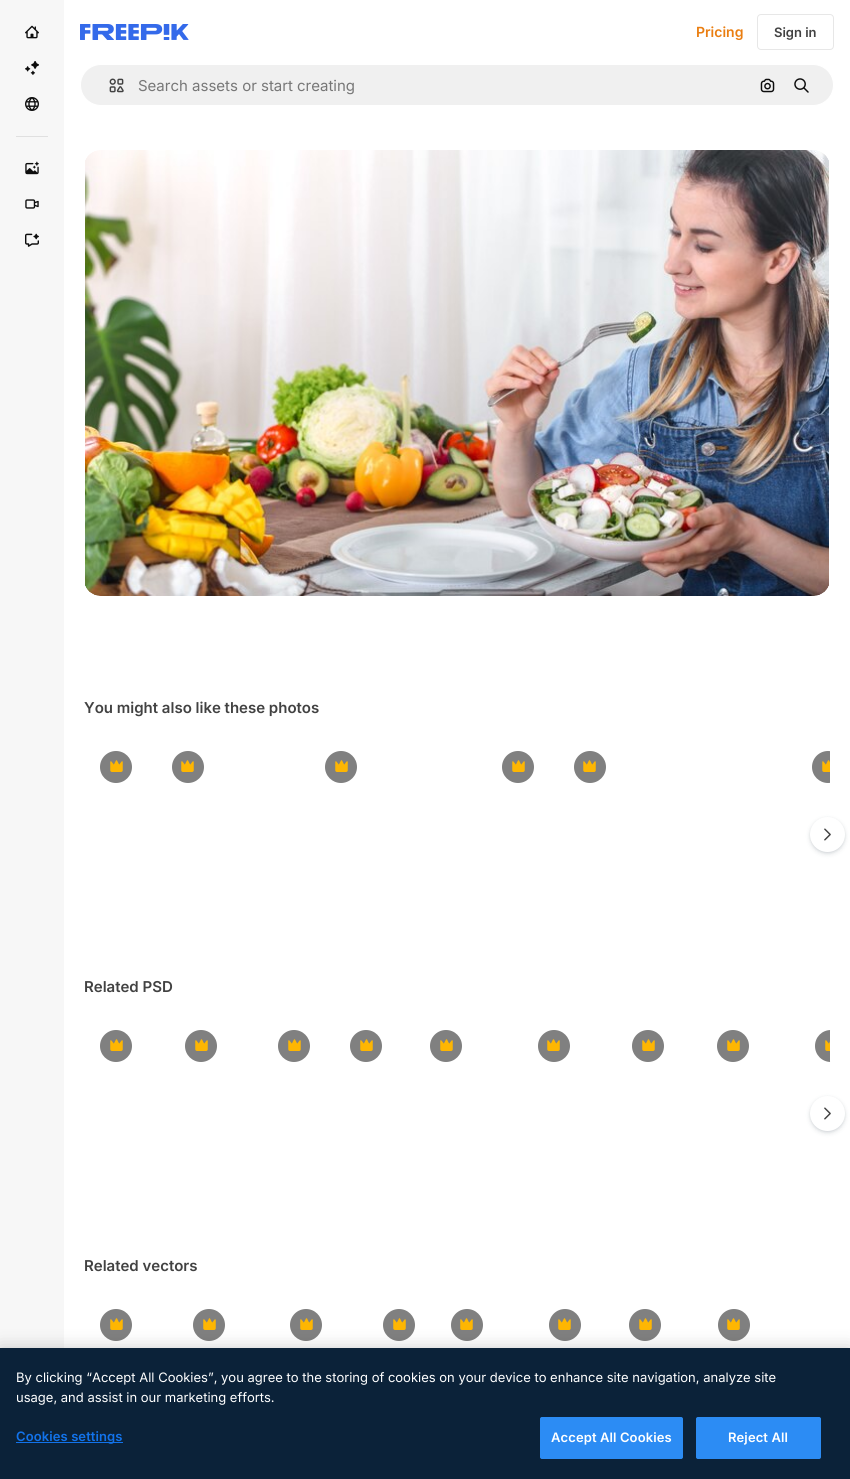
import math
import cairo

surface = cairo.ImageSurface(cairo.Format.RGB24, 850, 1479)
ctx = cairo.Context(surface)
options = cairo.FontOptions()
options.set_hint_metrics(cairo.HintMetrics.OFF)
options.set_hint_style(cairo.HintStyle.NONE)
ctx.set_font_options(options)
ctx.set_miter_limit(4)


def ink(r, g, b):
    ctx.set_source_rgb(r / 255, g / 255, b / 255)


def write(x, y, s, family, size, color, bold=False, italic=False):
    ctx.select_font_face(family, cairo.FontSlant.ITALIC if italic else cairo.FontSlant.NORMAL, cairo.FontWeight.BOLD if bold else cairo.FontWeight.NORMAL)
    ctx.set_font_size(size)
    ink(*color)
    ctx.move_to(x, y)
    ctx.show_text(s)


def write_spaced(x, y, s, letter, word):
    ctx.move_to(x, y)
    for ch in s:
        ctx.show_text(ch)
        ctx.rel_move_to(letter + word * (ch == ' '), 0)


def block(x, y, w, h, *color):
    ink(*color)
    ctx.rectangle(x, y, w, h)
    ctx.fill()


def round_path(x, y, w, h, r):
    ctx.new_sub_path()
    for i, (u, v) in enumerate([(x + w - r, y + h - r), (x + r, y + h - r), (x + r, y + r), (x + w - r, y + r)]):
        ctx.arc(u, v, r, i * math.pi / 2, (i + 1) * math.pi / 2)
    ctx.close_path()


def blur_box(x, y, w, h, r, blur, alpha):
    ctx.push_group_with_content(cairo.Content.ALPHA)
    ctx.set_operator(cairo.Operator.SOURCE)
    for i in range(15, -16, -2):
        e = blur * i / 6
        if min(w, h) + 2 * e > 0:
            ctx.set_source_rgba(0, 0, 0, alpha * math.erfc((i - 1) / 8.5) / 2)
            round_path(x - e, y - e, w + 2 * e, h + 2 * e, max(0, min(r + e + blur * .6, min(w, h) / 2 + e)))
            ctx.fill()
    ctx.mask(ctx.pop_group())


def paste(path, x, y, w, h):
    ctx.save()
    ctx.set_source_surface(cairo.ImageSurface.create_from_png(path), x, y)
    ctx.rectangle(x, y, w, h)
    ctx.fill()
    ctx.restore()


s1 = dict(family="Inter SemiBold", size=14, color=(234, 126, 17))
s2 = dict(family="Inter SemiBold", size=13, color=(66, 66, 66))
s3 = dict(family="Inter", size=15, color=(119, 119, 119))
s4 = dict(family="Inter SemiBold", size=15, color=(66, 66, 66))
s5 = dict(family="Inter", size=13, color=(255, 255, 255))

ink(255, 255, 255)
ctx.paint()
block(0, 0, 64, 1348, 247, 247, 247)
paste("pic1.png", 25, 25, 14, 14)
paste("pic2.png", 25, 61, 14, 14)
paste("pic3.png", 25, 97, 14, 14)
block(16, 136, 32, 1, 224, 224, 224)
paste("pic4.png", 25, 161, 14, 14)
paste("pic5.png", 25, 199, 14, 10)
paste("pic6.png", 25, 233, 14, 14)
paste("pic7.png", 80, 24, 109, 16)
write(696, 37, "Pricing", **s1)
round_path(757.5, 14.5, 76, 35, 3.5)
ink(231, 231, 231)
ctx.set_line_width(1)
ctx.stroke()
write(774, 37, "Sign in", **s2)
ink(240, 240, 240)
round_path(80.5, 64.5, 753, 41, 20.5)
ctx.fill_preserve()
ink(255, 255, 255)
ctx.stroke()
paste("pic8.png", 109, 78, 15, 15)
write(138, 91, "Search assets or start creating", **s3)
paste("pic9.png", 760, 78, 15, 15)
paste("pic10.png", 794, 78, 15, 15)
paste("pic11.png", 85, 150, 744, 446)
write(84, 713, "You might also like these photos", **s4)
ink(128, 128, 128)
ctx.new_path()
ctx.arc(116, 767, 16, 0, 2 * math.pi)
ctx.fill()
paste("pic12.png", 110, 760, 13, 12)
ctx.arc(188, 767, 16, 0, 2 * math.pi)
ctx.fill()
paste("pic12.png", 181, 760, 13, 12)
ctx.arc(341, 767, 16, 0, 2 * math.pi)
ctx.fill()
paste("pic12.png", 335, 760, 13, 12)
ctx.arc(518, 767, 16, 0, 2 * math.pi)
ctx.fill()
paste("pic12.png", 512, 760, 13, 12)
ctx.arc(590, 767, 16, 0, 2 * math.pi)
ctx.fill()
paste("pic12.png", 583, 760, 13, 12)
ctx.save()
ctx.rectangle(84, 735, 746, 200)
ctx.clip()
ctx.arc(828, 767, 16, 0, 2 * math.pi)
ctx.fill()
ctx.restore()
paste("pic13.png", 822, 760, 8, 12)
ink(55, 73, 87)
blur_box(810, 819, 35, 35, 17.5, 2.5, 0.15)
blur_box(810, 818, 35, 35, 17.5, 1, 0.1)
ink(255, 255, 255)
ctx.arc(827.5, 834.5, 17.5, 0, 2 * math.pi)
ctx.fill()
paste("pic14.png", 824, 828, 7, 13)
write(84, 992, "Related PSD", **s4)
ink(128, 128, 128)
ctx.new_path()
ctx.arc(116, 1046, 16, 0, 2 * math.pi)
ctx.fill()
paste("pic12.png", 110, 1039, 13, 12)
ctx.arc(201, 1046, 16, 0, 2 * math.pi)
ctx.fill()
paste("pic12.png", 195, 1039, 13, 12)
ctx.arc(294, 1046, 16, 0, 2 * math.pi)
ctx.fill()
paste("pic12.png", 288, 1039, 13, 12)
ctx.arc(366, 1046, 16, 0, 2 * math.pi)
ctx.fill()
paste("pic12.png", 360, 1039, 13, 12)
ctx.arc(446, 1046, 16, 0, 2 * math.pi)
ctx.fill()
paste("pic12.png", 440, 1039, 13, 12)
ctx.arc(554, 1046, 16, 0, 2 * math.pi)
ctx.fill()
paste("pic12.png", 547, 1039, 13, 12)
ctx.arc(648, 1046, 16, 0, 2 * math.pi)
ctx.fill()
paste("pic12.png", 642, 1039, 13, 12)
ctx.arc(733, 1046, 16, 0, 2 * math.pi)
ctx.fill()
paste("pic12.png", 727, 1039, 13, 12)
ctx.new_path()
ctx.move_to(831, 1030)
ctx.line_to(830, 1030)
ctx.line_to(830, 1062)
ctx.line_to(831, 1062)
ctx.curve_to(822, 1062, 815, 1055, 815, 1046)
ctx.curve_to(815, 1037, 822, 1030, 831, 1030)
ctx.close_path()
ctx.fill()
paste("pic15.png", 825, 1040, 5, 11)
ink(55, 73, 87)
blur_box(810, 1098, 35, 35, 17.5, 2.5, 0.15)
blur_box(810, 1097, 35, 35, 17.5, 1, 0.1)
ink(255, 255, 255)
ctx.arc(827.5, 1113.5, 17.5, 0, 2 * math.pi)
ctx.fill()
paste("pic14.png", 824, 1107, 7, 13)
write(84, 1271, "Related vectors", **s4)
ink(128, 128, 128)
ctx.new_path()
ctx.arc(116, 1325, 16, 0, 2 * math.pi)
ctx.fill()
paste("pic12.png", 110, 1318, 13, 12)
ctx.arc(209, 1325, 16, 0, 2 * math.pi)
ctx.fill()
paste("pic12.png", 203, 1318, 13, 12)
ctx.arc(306, 1325, 16, 0, 2 * math.pi)
ctx.fill()
paste("pic12.png", 300, 1318, 13, 12)
ctx.arc(399, 1325, 16, 0, 2 * math.pi)
ctx.fill()
paste("pic12.png", 393, 1318, 13, 12)
ctx.arc(467, 1325, 16, 0, 2 * math.pi)
ctx.fill()
paste("pic12.png", 460, 1318, 13, 12)
ctx.arc(565, 1325, 16, 0, 2 * math.pi)
ctx.fill()
paste("pic12.png", 558, 1318, 13, 12)
ctx.arc(645, 1325, 16, 0, 2 * math.pi)
ctx.fill()
paste("pic12.png", 639, 1318, 13, 12)
ctx.arc(734, 1325, 16, 0, 2 * math.pi)
ctx.fill()
paste("pic12.png", 727, 1318, 13, 12)
ink(0, 0, 0)
blur_box(0, 1348, 850, 131, 0, 9, 0.2)
block(0, 1348, 850, 131, 11, 34, 57)
write(16, 1382, "By clicking “Accept All Cookies”, you agree to the storing of cookies on your device to enhance site navigation, analyze site", **s5)
write(16, 1402, "usage, and assist in our marketing efforts.", **s5)
block(16, 1442, 107, 1, 18, 115, 235)
ctx.select_font_face("Inter SemiBold")
write_spaced(16, 1441, "Cookies settings", 0.1, 0)
ink(44, 140, 244)
round_path(540.5, 1417.5, 142, 41, 1.5)
ctx.fill_preserve()
ctx.stroke()
ink(255, 255, 255)
write_spaced(551, 1442, "Accept All Cookies", 0.1, 0)
ink(44, 140, 244)
round_path(696.5, 1417.5, 124, 41, 1.5)
ctx.fill_preserve()
ctx.stroke()
ink(255, 255, 255)
write_spaced(728, 1442, "Reject All", 0.1, 0)
surface.write_to_png("screenshot.png")
